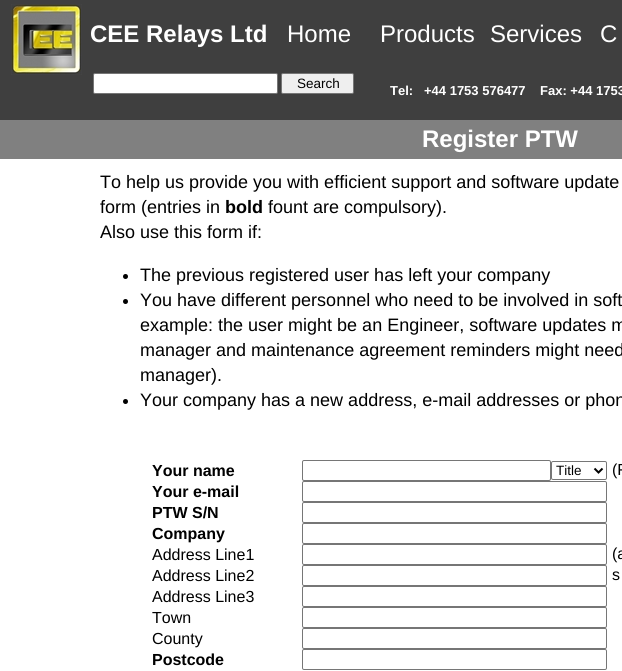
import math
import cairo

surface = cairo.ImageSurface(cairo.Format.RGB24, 622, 671)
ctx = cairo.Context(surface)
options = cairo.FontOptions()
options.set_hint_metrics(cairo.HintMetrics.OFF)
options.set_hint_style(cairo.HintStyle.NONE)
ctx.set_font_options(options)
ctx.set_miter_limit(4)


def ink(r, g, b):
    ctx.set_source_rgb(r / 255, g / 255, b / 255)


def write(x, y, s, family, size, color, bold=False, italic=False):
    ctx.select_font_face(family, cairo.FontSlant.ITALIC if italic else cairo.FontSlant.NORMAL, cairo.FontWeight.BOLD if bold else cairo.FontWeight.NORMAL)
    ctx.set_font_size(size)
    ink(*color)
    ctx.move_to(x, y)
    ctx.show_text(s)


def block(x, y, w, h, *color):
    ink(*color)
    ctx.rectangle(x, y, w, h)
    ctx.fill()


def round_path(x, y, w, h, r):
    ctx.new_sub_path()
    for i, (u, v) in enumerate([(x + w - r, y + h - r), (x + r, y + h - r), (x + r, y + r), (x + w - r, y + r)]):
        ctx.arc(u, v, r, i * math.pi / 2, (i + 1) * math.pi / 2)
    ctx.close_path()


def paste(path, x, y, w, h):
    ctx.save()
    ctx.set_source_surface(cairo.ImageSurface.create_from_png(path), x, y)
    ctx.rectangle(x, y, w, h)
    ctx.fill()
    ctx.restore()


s1 = dict(family="Liberation Sans", size=24, color=(255, 255, 255), bold=True)
s2 = dict(family="Liberation Sans", size=24, color=(255, 255, 255))
s3 = dict(family="Liberation Sans", size=13.5, color=(0, 0, 0))
s4 = dict(family="Liberation Sans", size=13, color=(255, 255, 255), bold=True)
s5 = dict(family="Liberation Sans", size=18, color=(0, 0, 0))
s6 = dict(family="Liberation Sans", size=18, color=(0, 0, 0), bold=True)
s7 = dict(family="Liberation Sans", size=16, color=(0, 0, 0), bold=True)
s8 = dict(family="Liberation Sans", size=16, color=(0, 0, 0))

ink(255, 255, 255)
ctx.paint()
block(0, 0, 622, 120, 63, 63, 63)
paste("pic1.png", 11, 4, 71, 71)
write(90, 42, "CEE Relays Ltd", **s1)
write(287, 42, "Home", **s2)
write(380, 42, "Products", **s2)
write(490, 42, "Services", **s2)
write(600, 42, "C", **s2)
round_path(93.5, 73.5, 184, 20, 1.5)
ctx.fill_preserve()
ink(118, 118, 118)
ctx.set_line_width(1)
ctx.stroke()
ink(239, 239, 239)
round_path(281.5, 73.5, 72, 20, 1.5)
ctx.fill_preserve()
ink(118, 118, 118)
ctx.stroke()
write(297, 88, "Search", **s3)
write(390, 95, "Tel:", **s4)
write(424, 95, "+44 1753 576477", **s4)
write(540, 95, "Fax: +44 1753", **s4)
block(0, 120, 622, 39, 128, 128, 128)
write(422, 147, "Register PTW", **s1)
write(100, 188, "To help us provide you with efficient support and software update", **s5)
write(100, 213, "form (entries in", **s5)
write(225, 213, "bold", **s6)
write(268, 213, "fount are compulsory).", **s5)
write(100, 238, "Also use this form if:", **s5)
ctx.new_path()
ctx.arc(125.5, 276.5, 2.5, 0, 2 * math.pi)
ctx.fill()
write(140, 281, "The previous registered user has left your company", **s5)
ctx.new_path()
ctx.arc(125.5, 301.5, 2.5, 0, 2 * math.pi)
ctx.fill()
write(140, 306, "You have different personnel who need to be involved in soft", **s5)
write(140, 331, "example: the user might be an Engineer, software updates m", **s5)
write(140, 356, "manager and maintenance agreement reminders might need", **s5)
write(140, 381, "manager).", **s5)
ctx.new_path()
ctx.arc(125.5, 401.5, 2.5, 0, 2 * math.pi)
ctx.fill()
write(140, 406, "Your company has a new address, e-mail addresses or phon", **s5)
write(152, 476, "Your name", **s7)
round_path(302.5, 460.5, 248, 20, 1.5)
ink(118, 118, 118)
ctx.stroke()
round_path(551.5, 461.5, 55, 18, 1.5)
ctx.stroke()
ctx.new_path()
ctx.move_to(594.5, 468.5)
ctx.line_to(598.5, 472.5)
ctx.line_to(602.5, 468.5)
ink(0, 0, 0)
ctx.set_line_width(2)
ctx.stroke()
write(556, 475, "Title", **s3)
write(612, 475, "(F", **s8)
write(152, 497, "Your e-mail", **s7)
round_path(302.5, 481.5, 304, 20, 1.5)
ink(118, 118, 118)
ctx.set_line_width(1)
ctx.stroke()
write(152, 518, "PTW S/N", **s7)
round_path(302.5, 502.5, 304, 20, 1.5)
ink(118, 118, 118)
ctx.stroke()
write(152, 539, "Company", **s7)
round_path(302.5, 523.5, 304, 20, 1.5)
ink(118, 118, 118)
ctx.stroke()
write(152, 560, "Address Line1", **s8)
round_path(302.5, 544.5, 304, 20, 1.5)
ink(118, 118, 118)
ctx.stroke()
write(612, 559, "(a", **s8)
write(152, 581, "Address Line2", **s8)
round_path(302.5, 565.5, 304, 20, 1.5)
ink(118, 118, 118)
ctx.stroke()
write(612, 580, "s", **s8)
write(152, 602, "Address Line3", **s8)
round_path(302.5, 586.5, 304, 20, 1.5)
ink(118, 118, 118)
ctx.stroke()
write(152, 623, "Town", **s8)
round_path(302.5, 607.5, 304, 20, 1.5)
ink(118, 118, 118)
ctx.stroke()
write(152, 644, "County", **s8)
round_path(302.5, 628.5, 304, 20, 1.5)
ink(118, 118, 118)
ctx.stroke()
write(152, 665, "Postcode", **s7)
round_path(302.5, 649.5, 304, 20, 1.5)
ink(118, 118, 118)
ctx.stroke()
surface.write_to_png("screenshot.png")
